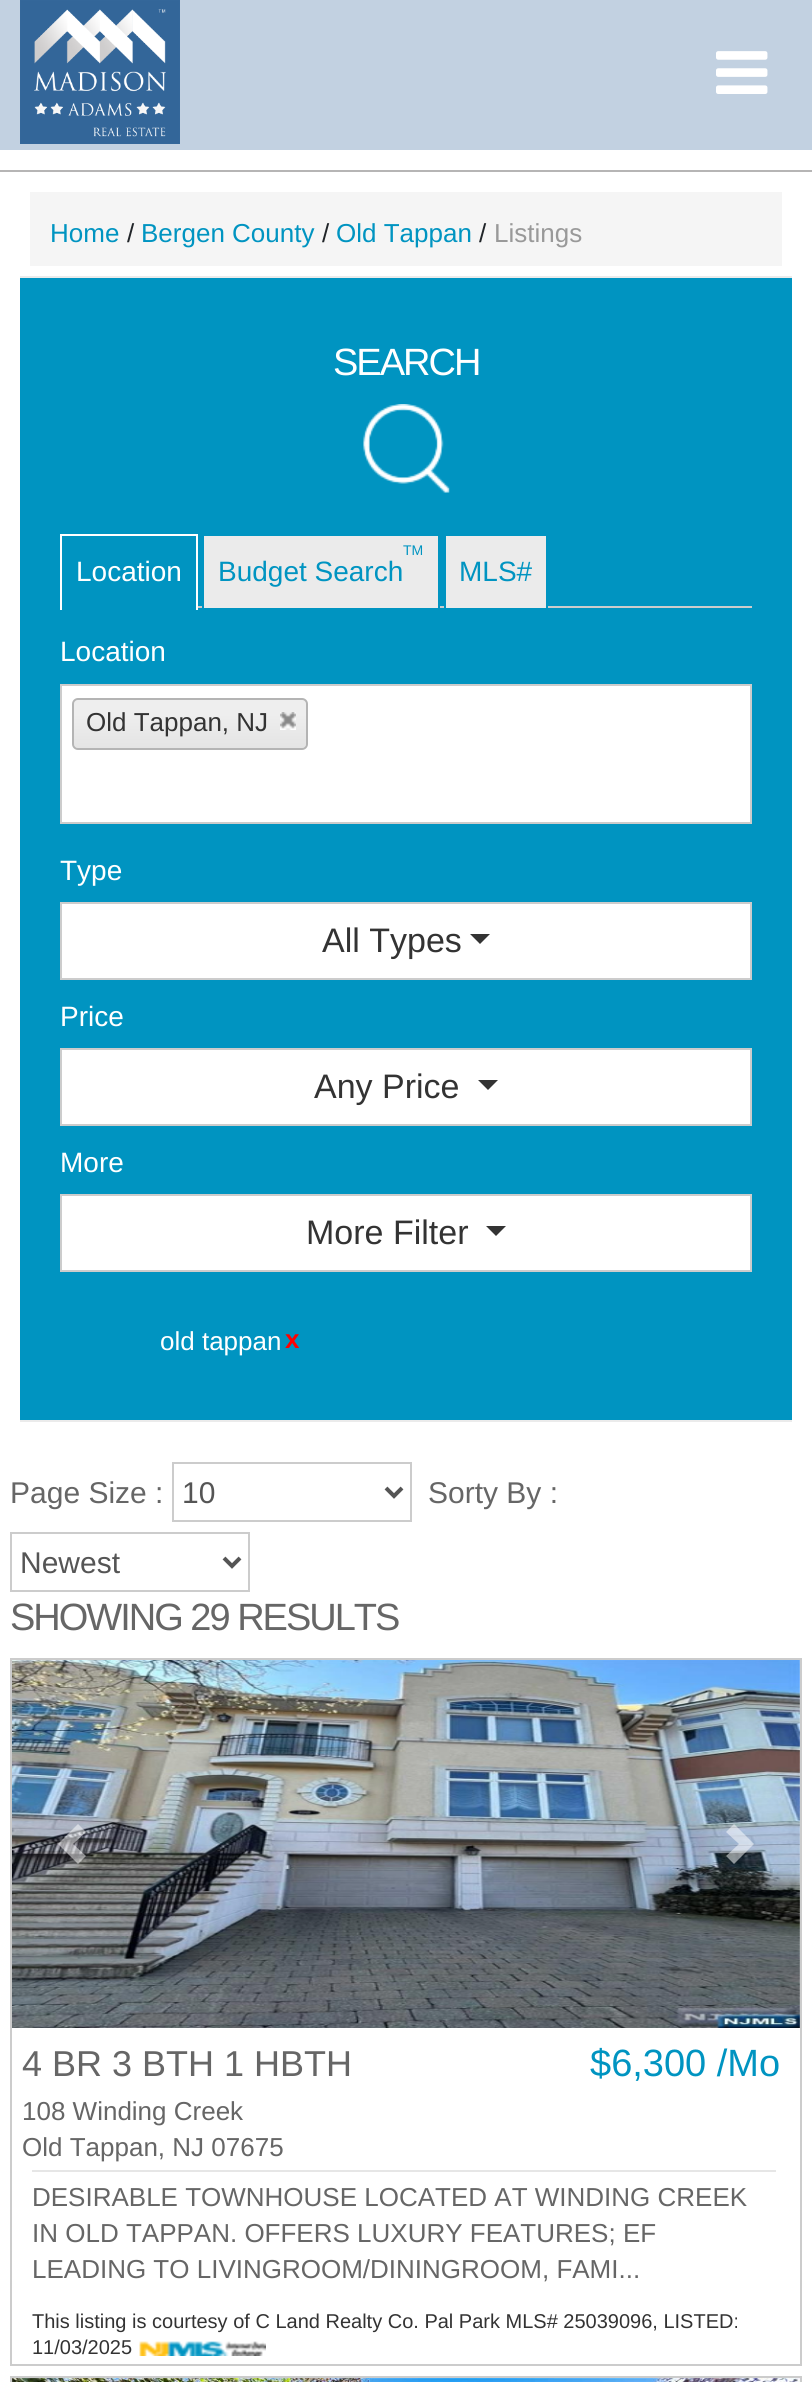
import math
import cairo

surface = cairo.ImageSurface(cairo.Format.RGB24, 812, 2382)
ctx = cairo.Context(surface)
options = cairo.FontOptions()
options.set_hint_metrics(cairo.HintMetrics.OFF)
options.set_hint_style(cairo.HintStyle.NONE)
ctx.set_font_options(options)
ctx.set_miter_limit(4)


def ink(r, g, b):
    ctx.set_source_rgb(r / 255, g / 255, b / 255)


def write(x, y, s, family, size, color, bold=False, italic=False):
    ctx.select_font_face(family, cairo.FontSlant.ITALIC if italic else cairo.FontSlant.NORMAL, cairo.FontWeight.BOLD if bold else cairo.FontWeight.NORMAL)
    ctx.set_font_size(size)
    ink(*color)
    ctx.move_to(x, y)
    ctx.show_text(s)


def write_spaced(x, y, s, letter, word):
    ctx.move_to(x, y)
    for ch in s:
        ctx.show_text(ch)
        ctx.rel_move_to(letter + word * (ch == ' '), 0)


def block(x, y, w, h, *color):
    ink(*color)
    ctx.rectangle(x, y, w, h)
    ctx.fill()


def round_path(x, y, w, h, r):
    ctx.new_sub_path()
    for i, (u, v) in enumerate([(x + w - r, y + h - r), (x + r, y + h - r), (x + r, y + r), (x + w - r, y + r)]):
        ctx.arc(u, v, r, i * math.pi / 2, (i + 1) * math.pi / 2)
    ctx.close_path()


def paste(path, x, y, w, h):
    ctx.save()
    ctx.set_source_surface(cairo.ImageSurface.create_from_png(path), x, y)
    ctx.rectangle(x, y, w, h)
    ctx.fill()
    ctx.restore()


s1 = dict(family="Liberation Sans", size=26, color=(0, 148, 193))
s2 = dict(family="Liberation Sans", size=26, color=(33, 37, 41))
s3 = dict(family="Liberation Sans", size=26, color=(153, 153, 153))
s4 = dict(family="Liberation Sans", size=28, color=(255, 255, 255))
s5 = dict(family="Liberation Sans", size=14, color=(0, 148, 193))
s6 = dict(family="Liberation Sans", size=28, color=(0, 148, 193))
s7 = dict(family="Liberation Sans", size=26, color=(51, 51, 51))
s8 = dict(family="Liberation Sans", size=34, color=(51, 51, 51))
s9 = dict(family="Liberation Sans", size=26, color=(255, 255, 255))
s10 = dict(family="Liberation Sans", size=26, color=(255, 0, 0), bold=True)
s11 = dict(family="Liberation Sans", size=30, color=(102, 102, 102))
s12 = dict(family="Liberation Sans", size=30, color=(85, 85, 85))
s13 = dict(family="Liberation Sans", size=36, color=(102, 102, 102))
s14 = dict(family="Liberation Sans", size=26, color=(102, 102, 102))
s15 = dict(family="Liberation Sans", size=38, color=(0, 148, 193))
s16 = dict(family="Liberation Sans", size=20, color=(51, 51, 51))

ink(255, 255, 255)
ctx.paint()
block(0, 0, 812, 150, 194, 209, 225)
paste("pic1.png", 20, 0, 160, 144)
paste("pic2.png", 716, 51, 52, 43)
block(0, 170, 812, 2, 182, 181, 181)
block(30, 192, 752, 74, 245, 245, 245)
write(50, 242, "Home", **s1)
write(127, 242, "/", **s2)
write(141, 242, "Bergen County", **s1)
write(322, 242, "/", **s2)
write(336, 242, "Old Tappan", **s1)
write(479, 242, "/", **s2)
write(494, 242, "Listings", **s3)
block(20, 278, 772, 1142, 0, 148, 193)
block(20, 276, 772, 2, 235, 235, 235)
block(20, 1420, 772, 2, 235, 235, 235)
ctx.set_font_size(38)
ink(255, 255, 255)
write_spaced(333, 375, "SEARCH", -2, 0)
paste("pic3.png", 363, 404, 87, 89)
block(60, 534, 138, 2, 255, 255, 255)
block(196, 534, 2, 76, 255, 255, 255)
block(60, 534, 2, 76, 255, 255, 255)
write(76, 581, "Location", **s4)
block(198, 606, 554, 2, 204, 204, 204)
ink(235, 235, 235)
ctx.rectangle(203, 535, 236, 74)
ctx.fill_preserve()
ink(0, 148, 193)
ctx.stroke()
write(403, 555, "TM", **s5)
write(218, 581, "Budget Search", **s6)
ink(235, 235, 235)
ctx.rectangle(445, 535, 102, 74)
ctx.fill_preserve()
ink(0, 148, 193)
ctx.stroke()
write(459, 581, "MLS#", **s6)
write(60, 661, "Location", **s4)
ctx.rectangle(61, 685, 690, 138)
ctx.fill_preserve()
ink(204, 204, 204)
ctx.stroke()
gradient = cairo.LinearGradient(74, 748, 74, 700)
gradient.add_color_stop_rgba(0, 0.894, 0.894, 0.894, 1)
gradient.add_color_stop_rgba(0.7, 0.933, 0.933, 0.933, 1)
ctx.set_source(gradient)
round_path(74, 700, 232, 48, 4)
ctx.fill()
round_path(73, 699, 234, 50, 5)
ink(180, 180, 180)
ctx.stroke()
write(86, 731, "Old Tappan, NJ", **s7)
paste("pic4.png", 280, 712, 16, 18)
write(60, 880, "Type", **s4)
ctx.rectangle(61, 903, 690, 76)
ctx.fill_preserve()
ink(204, 204, 204)
ctx.stroke()
write(322, 952, "All Types", **s8)
ctx.new_path()
ctx.move_to(470, 934)
ctx.line_to(490, 934)
ctx.line_to(480, 944)
ctx.close_path()
ctx.fill()
write(60, 1026, "Price", **s4)
ctx.rectangle(61, 1049, 690, 76)
ctx.fill_preserve()
ink(204, 204, 204)
ctx.stroke()
write(314, 1098, "Any Price", **s8)
ctx.new_path()
ctx.move_to(478, 1080)
ctx.line_to(498, 1080)
ctx.line_to(488, 1090)
ctx.close_path()
ctx.fill()
write(60, 1172, "More", **s4)
ctx.rectangle(61, 1195, 690, 76)
ctx.fill_preserve()
ink(204, 204, 204)
ctx.stroke()
write(306, 1244, "More Filter", **s8)
ctx.new_path()
ctx.move_to(486, 1226)
ctx.line_to(506, 1226)
ctx.line_to(496, 1236)
ctx.close_path()
ctx.fill()
write(160, 1350, "old tappan", **s9)
write(285, 1348, "x", **s10)
write(10, 1503, "Page Size :", **s11)
ctx.rectangle(173, 1463, 238, 58)
ink(204, 204, 204)
ctx.stroke()
ctx.new_path()
ctx.move_to(386, 1488)
ctx.line_to(394, 1496)
ctx.line_to(402, 1488)
ink(85, 85, 85)
ctx.set_line_width(4)
ctx.stroke()
write(182, 1503, "10", **s12)
write(428, 1503, "Sorty By :", **s11)
ctx.rectangle(11, 1533, 238, 58)
ink(204, 204, 204)
ctx.set_line_width(2)
ctx.stroke()
ctx.new_path()
ctx.move_to(224, 1558)
ctx.line_to(232, 1566)
ctx.line_to(240, 1558)
ink(85, 85, 85)
ctx.set_line_width(4)
ctx.stroke()
write(20, 1573, "Newest", **s12)
ctx.set_font_size(38)
ink(102, 102, 102)
write_spaced(10, 1630, "SHOWING 29 RESULTS", -2, 0)
ctx.rectangle(11, 1659, 790, 706)
ink(204, 204, 204)
ctx.set_line_width(2)
ctx.stroke()
paste("pic5.png", 12, 1660, 788, 368)
ctx.set_source_rgba(1, 1, 1, 0.5)
ctx.new_path()
ctx.move_to(78, 1824)
ctx.line_to(58, 1844)
ctx.line_to(78, 1864)
ctx.line_to(86, 1856)
ctx.line_to(73, 1844)
ctx.line_to(86, 1832)
ctx.close_path()
ctx.fill()
ctx.new_path()
ctx.move_to(734, 1824)
ctx.line_to(726, 1832)
ctx.line_to(739, 1844)
ctx.line_to(726, 1856)
ctx.line_to(734, 1864)
ctx.line_to(754, 1844)
ctx.close_path()
ctx.fill()
write(22, 2076, "4 BR 3 BTH 1 HBTH", **s13)
write(22, 2120, "108 Winding Creek", **s14)
write(22, 2156, "Old Tappan, NJ 07675", **s14)
write(590, 2076, "$6,300 /Mo", **s15)
block(32, 2170, 744, 2, 230, 230, 230)
write(32, 2206, "DESIRABLE TOWNHOUSE LOCATED AT WINDING CREEK", **s14)
write(32, 2242, "IN OLD TAPPAN. OFFERS LUXURY FEATURES; EF", **s14)
write(32, 2278, "LEADING TO LIVINGROOM/DININGROOM, FAMI...", **s14)
write(32, 2328, "This listing is courtesy of C Land Realty Co. Pal Park MLS# 25039096, LISTED:", **s16)
write(32, 2354, "11/03/2025", **s16)
paste("pic6.png", 139, 2341, 127, 15)
ctx.rectangle(11, 2377, 790, 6)
ink(204, 204, 204)
ctx.stroke()
paste("pic7.png", 12, 2378, 788, 4)
surface.write_to_png("screenshot.png")
